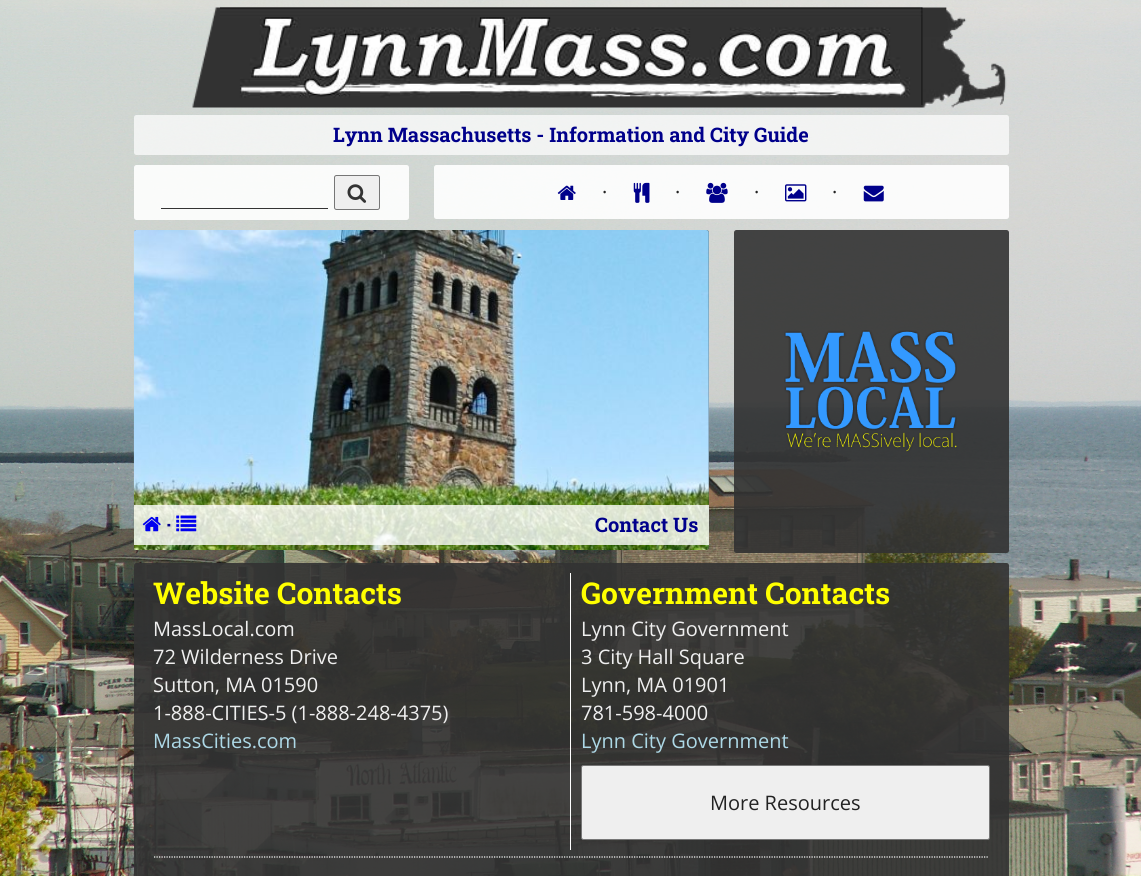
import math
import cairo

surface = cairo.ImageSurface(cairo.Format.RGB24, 1141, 876)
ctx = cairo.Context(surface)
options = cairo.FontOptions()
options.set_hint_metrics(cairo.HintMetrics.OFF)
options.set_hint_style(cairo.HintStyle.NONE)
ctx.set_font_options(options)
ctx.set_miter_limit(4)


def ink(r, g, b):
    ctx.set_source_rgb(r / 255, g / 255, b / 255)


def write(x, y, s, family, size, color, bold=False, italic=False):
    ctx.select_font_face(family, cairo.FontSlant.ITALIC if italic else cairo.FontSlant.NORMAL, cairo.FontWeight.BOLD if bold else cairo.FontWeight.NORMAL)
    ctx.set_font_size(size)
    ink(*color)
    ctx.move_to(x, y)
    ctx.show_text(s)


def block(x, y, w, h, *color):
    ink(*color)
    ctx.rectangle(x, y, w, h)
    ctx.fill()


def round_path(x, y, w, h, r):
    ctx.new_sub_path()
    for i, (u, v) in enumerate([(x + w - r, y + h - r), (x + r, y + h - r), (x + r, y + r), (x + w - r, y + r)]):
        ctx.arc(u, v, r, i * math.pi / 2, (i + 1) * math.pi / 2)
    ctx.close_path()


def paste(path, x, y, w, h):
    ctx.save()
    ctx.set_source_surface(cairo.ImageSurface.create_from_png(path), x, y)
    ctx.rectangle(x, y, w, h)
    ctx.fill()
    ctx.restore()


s1 = dict(family="Roboto Slab", size=20, color=(0, 0, 139), bold=True)
s2 = dict(family="Open Sans", size=20, color=(34, 34, 34))
s3 = dict(family="Roboto Slab", size=30, color=(255, 255, 0), bold=True)
s4 = dict(family="Open Sans", size=20, color=(239, 239, 239))
s5 = dict(family="Open Sans", size=20, color=(173, 216, 230))

ink(255, 255, 255)
ctx.paint()
paste("pic1.png", 0, 0, 1141, 876)
paste("pic2.png", 192, 7, 815, 101)
paste("pic3.png", 220, 7, 703, 98)
ctx.set_source_rgba(1, 1, 1, 0.7)
round_path(134, 115, 875, 40, 2.5)
ctx.fill()
write(333, 142, "Lynn Massachusetts - Information and City Guide", **s1)
ctx.set_source_rgba(1, 1, 1, 0.9)
round_path(134, 165, 275, 55, 2.5)
ctx.fill()
block(161, 208, 167, 1, 51, 51, 51)
ink(239, 239, 239)
round_path(334.5, 175.5, 45, 34, 2)
ctx.fill_preserve()
ink(118, 118, 118)
ctx.set_line_width(1)
ctx.stroke()
paste("pic4.png", 347, 184, 20, 19)
ctx.set_source_rgba(1, 1, 1, 0.9)
round_path(434, 165, 575, 54, 2.5)
ctx.fill()
paste("pic5.png", 557, 185, 19, 15)
write(602, 199, "·", **s2)
paste("pic6.png", 633, 182, 17, 21)
write(675, 199, "·", **s2)
paste("pic7.png", 706, 182, 22, 21)
write(754, 199, "·", **s2)
paste("pic8.png", 785, 184, 22, 18)
write(832, 199, "·", **s2)
paste("pic9.png", 863, 185, 21, 17)
ctx.set_source_rgba(0.196, 0.196, 0.196, 0.9)
round_path(134, 230, 575, 320, 2.5)
ctx.fill()
paste("pic10.png", 133, 230, 576, 320)
ctx.set_source_rgba(1, 1, 1, 0.8)
ctx.rectangle(134, 505, 575, 40)
ctx.fill()
paste("pic11.png", 142, 516, 19, 16)
write(166, 532, "·", **s1)
paste("pic12.png", 176, 515, 21, 17)
write(595, 532, "Contact Us", **s1)
ctx.set_source_rgba(0.196, 0.196, 0.196, 0.9)
round_path(734, 230, 275, 323, 2.5)
ctx.fill()
paste("pic13.png", 784, 330, 173, 122)
round_path(134, 563, 875, 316, 2.5)
ctx.fill()
write(153, 604, "Website Contacts", **s3)
write(153, 636, "MassLocal.com", **s4)
write(153, 664, "72 Wilderness Drive", **s4)
write(153, 692, "Sutton, MA 01590", **s4)
write(153, 720, "1-888-CITIES-5 (1-888-248-4375)", **s4)
write(153, 748, "MassCities.com", **s5)
block(570, 573, 1, 277, 255, 255, 255)
write(581, 604, "Government Contacts", **s3)
write(581, 636, "Lynn City Government", **s4)
write(581, 664, "3 City Hall Square", **s4)
write(581, 692, "Lynn, MA 01901", **s4)
write(581, 720, "781-598-4000", **s4)
write(581, 748, "Lynn City Government", **s5)
ink(239, 239, 239)
round_path(581.5, 765.5, 408, 74, 2)
ctx.fill_preserve()
ink(118, 118, 118)
ctx.stroke()
write(710, 810, "More Resources", **s2)
ctx.new_path()
ctx.move_to(154, 857)
ctx.line_to(989, 857)
ink(255, 255, 255)
ctx.set_line_width(1.2)
ctx.set_dash([1.25, 1.25])
ctx.stroke()
surface.write_to_png("screenshot.png")
